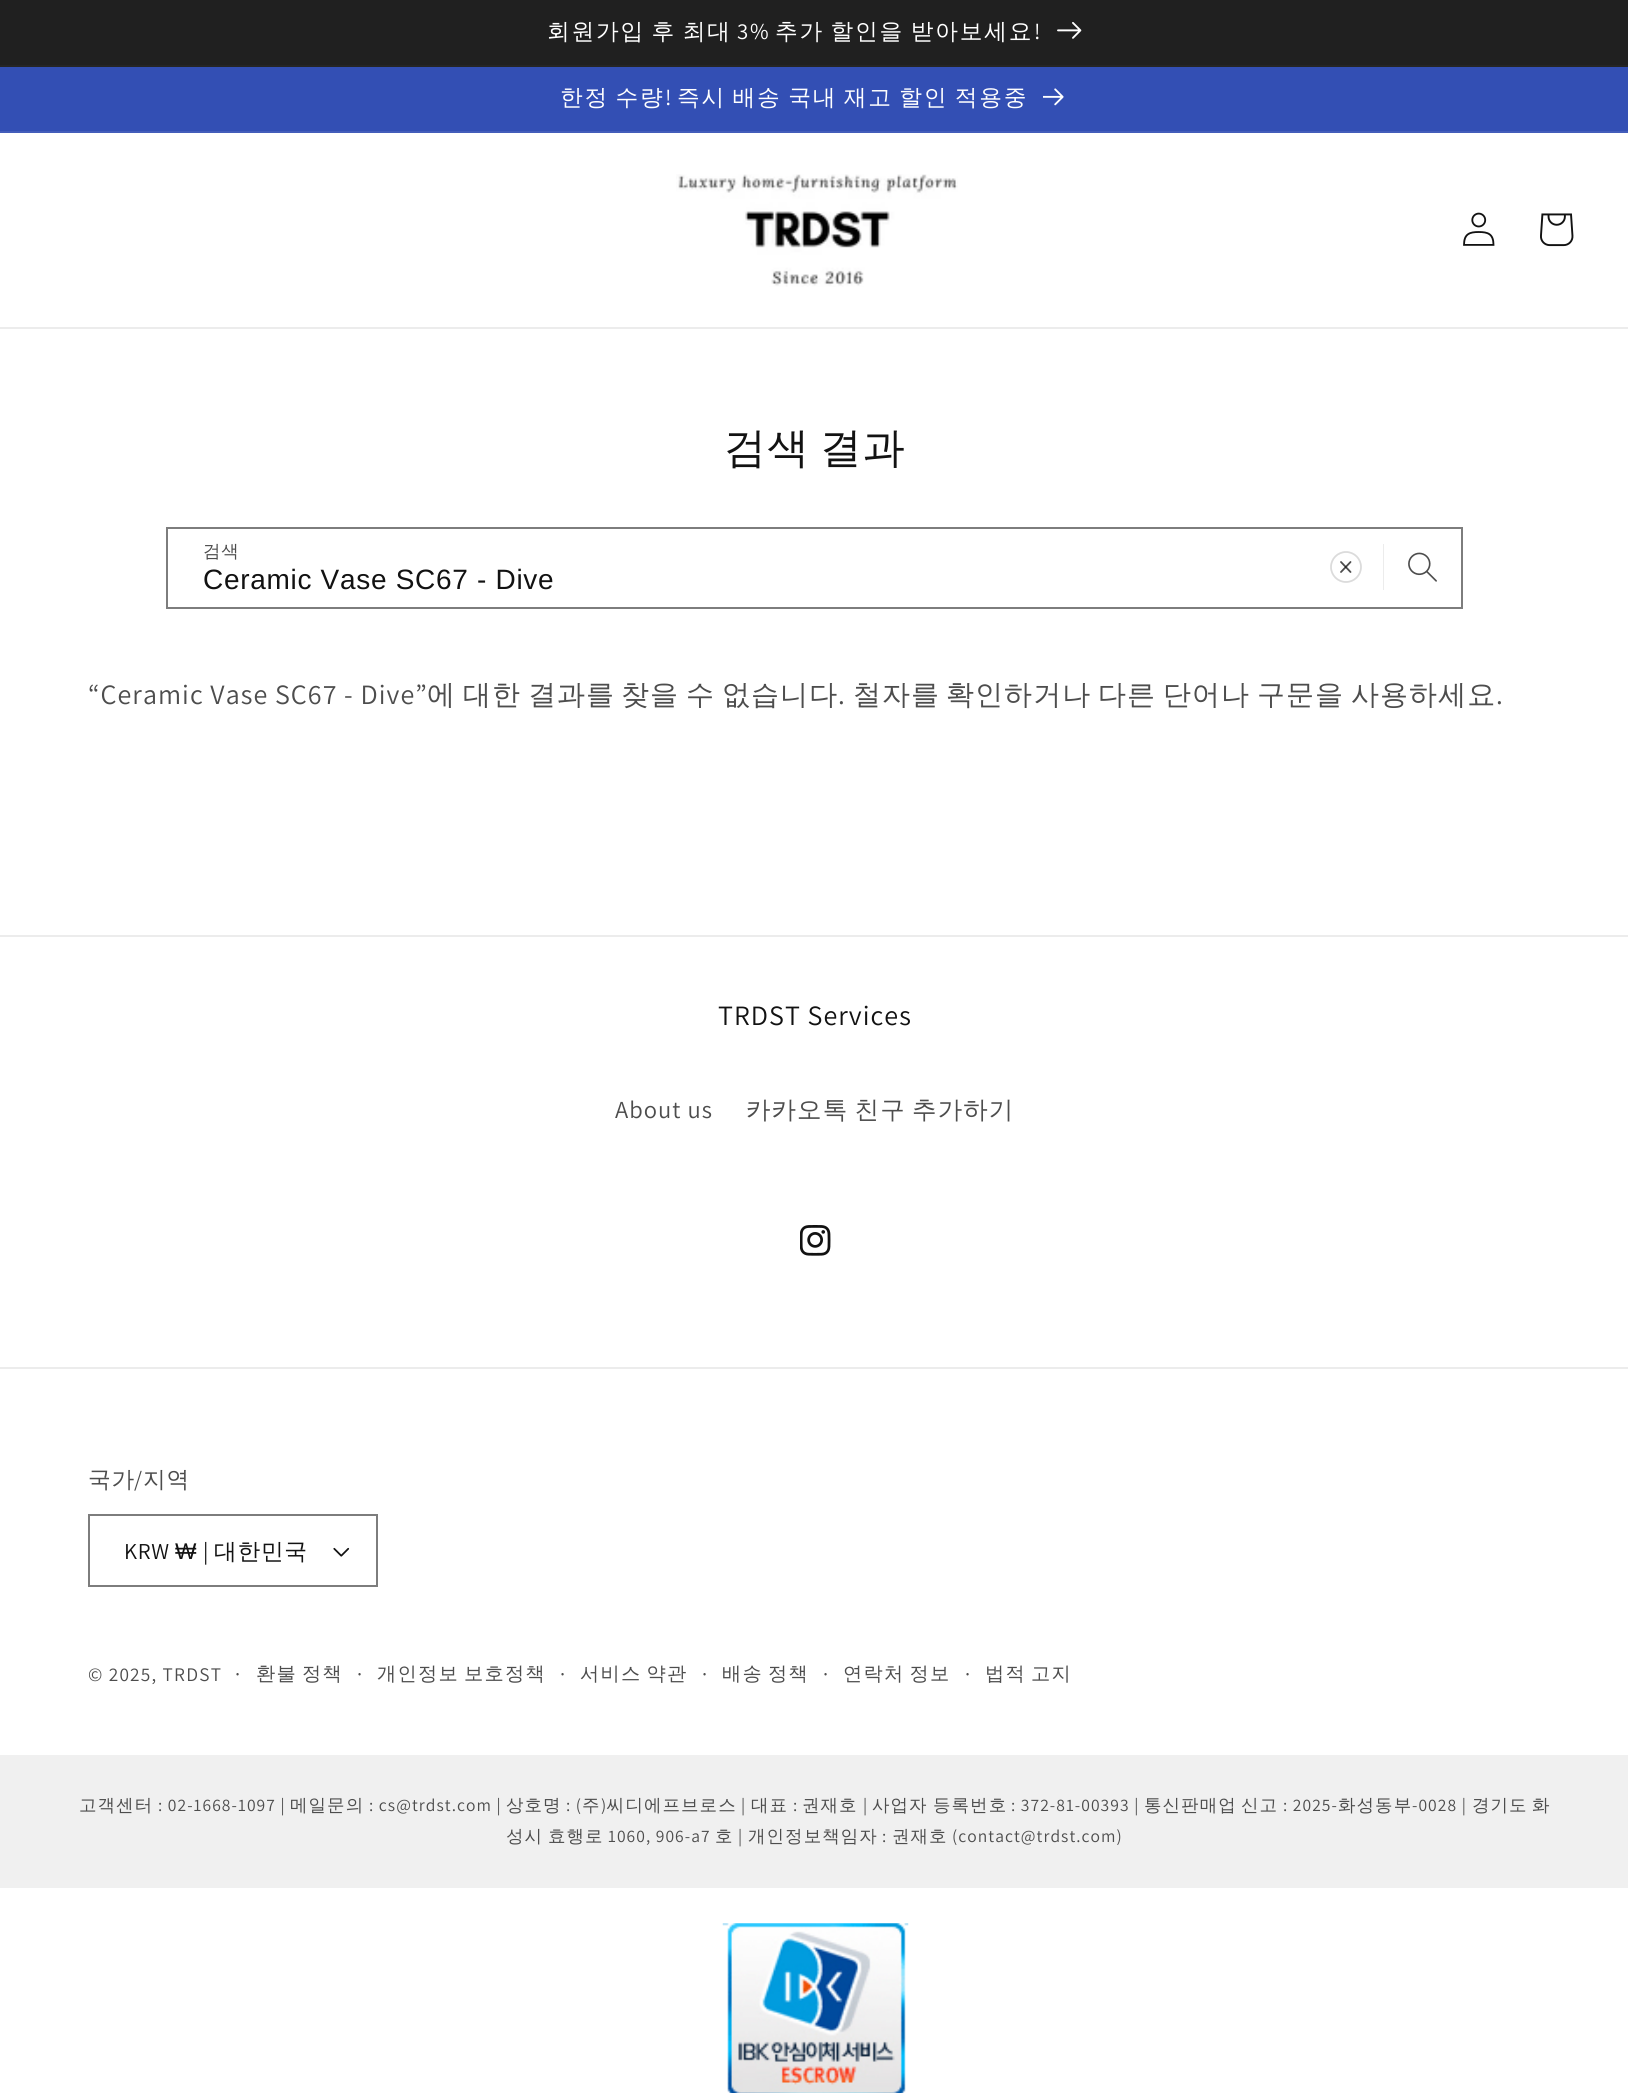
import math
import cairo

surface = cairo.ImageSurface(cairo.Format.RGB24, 1628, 2093)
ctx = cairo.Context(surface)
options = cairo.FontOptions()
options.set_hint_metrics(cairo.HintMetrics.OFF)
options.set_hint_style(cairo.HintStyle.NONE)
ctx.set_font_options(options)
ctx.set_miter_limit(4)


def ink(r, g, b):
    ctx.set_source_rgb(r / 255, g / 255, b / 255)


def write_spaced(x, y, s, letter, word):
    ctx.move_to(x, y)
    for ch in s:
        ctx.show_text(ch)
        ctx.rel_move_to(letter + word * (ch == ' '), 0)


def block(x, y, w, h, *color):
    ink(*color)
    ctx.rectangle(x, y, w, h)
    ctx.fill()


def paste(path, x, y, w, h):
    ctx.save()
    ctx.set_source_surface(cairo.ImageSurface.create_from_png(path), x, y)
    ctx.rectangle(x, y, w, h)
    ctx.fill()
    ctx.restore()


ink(255, 255, 255)
ctx.paint()
block(0, 65, 1628, 2, 37, 37, 37)
block(0, 0, 1628, 65, 32, 32, 32)
ctx.select_font_face("WenQuanYi Zen Hei Medium")
ctx.set_font_size(22.75)
ink(255, 255, 255)
write_spaced(547, 39, "회원가입 후 최대", 1.75, -2)
ctx.select_font_face("Assistant")
write_spaced(737, 39, "3%", 1.75, 0)
ctx.select_font_face("WenQuanYi Zen Hei Medium")
write_spaced(775, 39, "추가 할인을 받아보세요", 1.75, -2)
ctx.select_font_face("Assistant")
write_spaced(1034, 39, "!", 1.75, 0)
paste("pic1.png", 1057, 22, 25, 17)
block(0, 67, 1628, 64, 51, 79, 180)
block(0, 131, 1628, 2, 67, 93, 186)
ctx.select_font_face("WenQuanYi Zen Hei Medium")
ink(255, 255, 255)
write_spaced(560, 105, "한정 수량", 1.75, -2)
ctx.select_font_face("Assistant")
write_spaced(665, 105, "!", 1.75, 0)
ctx.select_font_face("WenQuanYi Zen Hei Medium")
write_spaced(677, 105, "즉시 배송 국내 재고 할인 적용중", 1.75, -2)
paste("pic2.png", 1043, 88, 21, 18)
block(0, 327, 1628, 2, 236, 236, 236)
paste("pic3.png", 676, 174, 282, 113)
paste("pic4.png", 1463, 212, 32, 34)
paste("pic5.png", 1540, 213, 34, 34)
ctx.set_font_size(42)
ink(18, 18, 18)
write_spaced(724, 462, "검색 결과", 1.05, -4)
ctx.new_path()
ctx.arc(1346, 567, 15, 0, 2 * math.pi)
ink(219, 219, 219)
ctx.set_line_width(1.8)
ctx.stroke()
ctx.new_path()
ctx.move_to(1350.5, 572)
ctx.line_to(1341, 562)
ink(77, 77, 77)
ctx.set_line_cap(cairo.LineCap.ROUND)
ctx.set_line_join(cairo.LineJoin.ROUND)
ctx.stroke()
ctx.new_path()
ctx.move_to(1341, 572)
ctx.line_to(1350.5, 562)
ctx.set_source_rgba(0.071, 0.071, 0.071, 0.75)
ctx.stroke()
block(1383, 544, 1, 46, 236, 236, 236)
paste("pic6.png", 1408, 552, 29, 30)
ctx.rectangle(167, 528, 1295, 80)
ink(125, 125, 125)
ctx.set_line_width(2)
ctx.set_line_cap(cairo.LineCap.BUTT)
ctx.set_line_join(cairo.LineJoin.MITER)
ctx.stroke()
ctx.set_font_size(17.5)
ink(77, 77, 77)
write_spaced(203, 557, "검색", 0.7, 0)
ctx.select_font_face("Liberation Sans")
ctx.set_font_size(28)
ink(18, 18, 18)
write_spaced(203, 589, "Ceramic Vase SC67 - Dive", 0.7, 0)
ctx.select_font_face("Assistant")
ink(77, 77, 77)
write_spaced(88, 704, "“Ceramic Vase SC67 - Dive”", 1.05, 0)
ctx.select_font_face("WenQuanYi Zen Hei Medium")
write_spaced(427, 704, "에", 1.05, 0)
write_spaced(463, 704, "대한", 1.05, 0)
write_spaced(528, 704, "결과를", 1.05, 0)
write_spaced(621, 704, "찾을", 1.05, 0)
write_spaced(686, 704, "수", 1.05, 0)
write_spaced(722, 704, "없습니다", 1.05, 0)
ctx.select_font_face("Assistant")
write_spaced(838, 704, ".", 1.05, 0)
ctx.select_font_face("WenQuanYi Zen Hei Medium")
write_spaced(853, 704, "철자를", 1.05, 0)
write_spaced(946, 704, "확인하거나", 1.05, 0)
write_spaced(1098, 704, "다른", 1.05, 0)
write_spaced(1163, 704, "단어나", 1.05, 0)
write_spaced(1257, 704, "구문을", 1.05, 0)
write_spaced(1351, 704, "사용하세요", 1.05, 0)
ctx.select_font_face("Assistant")
write_spaced(1496, 704, ".", 1.05, 0)
block(0, 935, 1628, 2, 236, 236, 236)
ink(18, 18, 18)
write_spaced(718, 1025, "TRDST Services", 1.05, 0)
ctx.set_font_size(24.5)
ink(77, 77, 77)
write_spaced(615, 1118, "About us", 1.05, 0)
ctx.select_font_face("WenQuanYi Zen Hei Medium")
write_spaced(746, 1118, "카카오톡 친구 추가하기", 1.05, -2)
paste("pic7.png", 800, 1225, 31, 31)
block(0, 1367, 1628, 2, 236, 236, 236)
ctx.set_font_size(22.75)
ink(77, 77, 77)
write_spaced(88, 1487, "국가", 0.7, 0)
ctx.select_font_face("Assistant")
write_spaced(134, 1487, "/", 0.7, 0)
ctx.select_font_face("WenQuanYi Zen Hei Medium")
write_spaced(143, 1487, "지역", 0.7, 0)
paste("pic8.png", 333, 1547, 17, 10)
ctx.rectangle(89, 1515, 288, 71)
ink(125, 125, 125)
ctx.stroke()
ctx.select_font_face("Assistant")
ink(18, 18, 18)
write_spaced(124, 1559, "KRW", 0.7, 0)
ctx.select_font_face("Liberation Sans")
write_spaced(175, 1559, "₩", 0.7, 0)
ctx.select_font_face("Assistant")
write_spaced(203, 1559, "|", 0.7, 0)
ctx.select_font_face("WenQuanYi Zen Hei Medium")
write_spaced(214, 1559, "대한민국", 0.7, 0)
ctx.select_font_face("Assistant")
ctx.set_font_size(19.25)
ink(77, 77, 77)
write_spaced(88, 1681, "© 2025, TRDST", 1.25, 0)
ctx.set_font_size(21)
write_spaced(235, 1681, "·", 1.25, 0)
ctx.select_font_face("WenQuanYi Zen Hei Medium")
ctx.set_font_size(19.25)
write_spaced(256, 1680, "환불 정책", 1.25, -2)
ctx.select_font_face("Assistant")
ctx.set_font_size(21)
write_spaced(357, 1681, "·", 1.25, 0)
ctx.select_font_face("WenQuanYi Zen Hei Medium")
ctx.set_font_size(19.25)
write_spaced(377, 1680, "개인정보 보호정책", 1.25, -2)
ctx.select_font_face("Assistant")
ctx.set_font_size(21)
write_spaced(560, 1681, "·", 1.25, 0)
ctx.select_font_face("WenQuanYi Zen Hei Medium")
ctx.set_font_size(19.25)
write_spaced(580, 1680, "서비스 약관", 1.25, -2)
ctx.select_font_face("Assistant")
ctx.set_font_size(21)
write_spaced(702, 1681, "·", 1.25, 0)
ctx.select_font_face("WenQuanYi Zen Hei Medium")
ctx.set_font_size(19.25)
write_spaced(722, 1680, "배송 정책", 1.25, -2)
ctx.select_font_face("Assistant")
ctx.set_font_size(21)
write_spaced(823, 1681, "·", 1.25, 0)
ctx.select_font_face("WenQuanYi Zen Hei Medium")
ctx.set_font_size(19.25)
write_spaced(843, 1680, "연락처 정보", 1.25, -2)
ctx.select_font_face("Assistant")
ctx.set_font_size(21)
write_spaced(965, 1681, "·", 1.25, 0)
ctx.select_font_face("WenQuanYi Zen Hei Medium")
ctx.set_font_size(19.25)
write_spaced(985, 1680, "법적 고지", 1.25, -2)
block(0, 1755, 1628, 133, 240, 240, 240)
ctx.set_font_size(17.5)
ink(77, 77, 77)
write_spaced(79, 1811, "고객센터", 1.05, 0)
ctx.select_font_face("Assistant")
write_spaced(158, 1811, ": 02-1668-1097 |", 1.05, 0)
ctx.select_font_face("WenQuanYi Zen Hei Medium")
write_spaced(290, 1811, "메일문의", 1.05, 0)
ctx.select_font_face("Assistant")
write_spaced(369, 1811, ": cs@trdst.com |", 1.05, 0)
ctx.select_font_face("WenQuanYi Zen Hei Medium")
write_spaced(506, 1811, "상호명", 1.05, 0)
ctx.select_font_face("Assistant")
write_spaced(566, 1811, ": (", 1.05, 0)
ctx.select_font_face("WenQuanYi Zen Hei Medium")
write_spaced(582, 1811, "주 씨디에프브로스", 1.05, 0)
ctx.select_font_face("Assistant")
write_spaced(741, 1811, "|", 1.05, 0)
ctx.select_font_face("WenQuanYi Zen Hei Medium")
write_spaced(751, 1811, "대표", 1.05, 0)
write_spaced(802, 1811, "권재호", 1.05, 0)
ctx.select_font_face("Assistant")
write_spaced(863, 1811, "|", 1.05, 0)
ctx.select_font_face("WenQuanYi Zen Hei Medium")
write_spaced(872, 1811, "사업자", 1.05, 0)
write_spaced(933, 1811, "등록번호", 1.05, 0)
ctx.select_font_face("Assistant")
write_spaced(1011, 1811, ": 372-81-00393 |", 1.05, 0)
ctx.select_font_face("WenQuanYi Zen Hei Medium")
write_spaced(1144, 1811, "통신판매업", 1.05, 0)
write_spaced(1241, 1811, "신고", 1.05, 0)
write_spaced(1338, 1811, "화성동부", 1.05, 0)
ctx.select_font_face("Assistant")
write_spaced(1412, 1811, "-0028 |", 1.05, 0)
ctx.select_font_face("WenQuanYi Zen Hei Medium")
write_spaced(1472, 1811, "경기도", 1.05, 0)
write_spaced(1532, 1811, "화", 1.05, 0)
ctx.select_font_face("Assistant")
write_spaced(601, 1811, ")", 1.05, 0)
write_spaced(793, 1811, ":", 1.05, 0)
write_spaced(1283, 1811, ": 2025-", 1.05, 0)
ctx.select_font_face("WenQuanYi Zen Hei Medium")
write_spaced(506, 1842, "성시", 1.05, 0)
write_spaced(548, 1842, "효행로", 1.05, 0)
ctx.select_font_face("Assistant")
write_spaced(608, 1842, "1060, 906-a7", 1.05, 0)
ctx.select_font_face("WenQuanYi Zen Hei Medium")
write_spaced(715, 1842, "호", 1.05, 0)
ctx.select_font_face("Assistant")
write_spaced(738, 1842, "|", 1.05, 0)
ctx.select_font_face("WenQuanYi Zen Hei Medium")
write_spaced(748, 1842, "개인정보책임자", 1.05, 0)
ctx.select_font_face("Assistant")
write_spaced(882, 1842, ":", 1.05, 0)
ctx.select_font_face("WenQuanYi Zen Hei Medium")
write_spaced(892, 1842, "권재호", 1.05, 0)
ctx.select_font_face("Assistant")
write_spaced(952, 1842, "(contact@trdst.com)", 1.05, 0)
paste("pic9.png", 722, 1923, 187, 170)
surface.write_to_png("screenshot.png")
